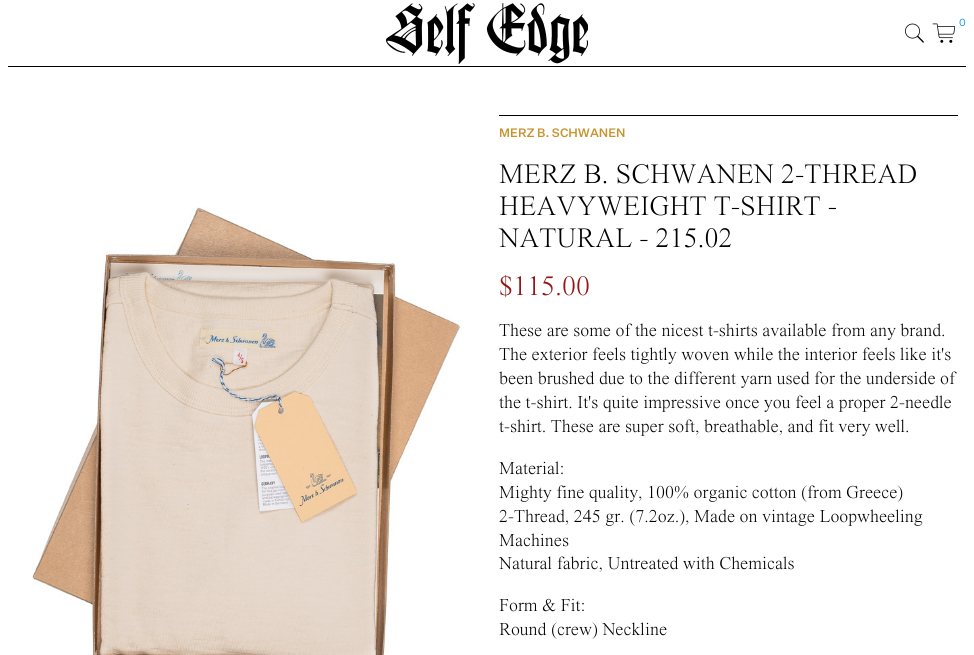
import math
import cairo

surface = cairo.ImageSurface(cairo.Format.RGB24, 974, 655)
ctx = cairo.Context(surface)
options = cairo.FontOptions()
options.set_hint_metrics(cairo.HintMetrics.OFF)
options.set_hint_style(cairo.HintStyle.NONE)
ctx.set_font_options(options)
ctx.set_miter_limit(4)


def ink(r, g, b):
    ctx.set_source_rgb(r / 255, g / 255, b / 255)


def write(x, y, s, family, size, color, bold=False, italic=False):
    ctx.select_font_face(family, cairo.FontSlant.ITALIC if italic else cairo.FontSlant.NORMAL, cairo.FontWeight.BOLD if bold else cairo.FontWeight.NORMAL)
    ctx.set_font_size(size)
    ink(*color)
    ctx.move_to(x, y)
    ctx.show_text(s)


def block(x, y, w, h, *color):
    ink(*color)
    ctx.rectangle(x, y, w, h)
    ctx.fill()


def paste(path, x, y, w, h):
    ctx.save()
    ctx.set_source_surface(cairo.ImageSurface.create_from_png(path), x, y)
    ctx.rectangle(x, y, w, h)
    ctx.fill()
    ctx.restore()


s1 = dict(family="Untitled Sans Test", size=10, color=(17, 142, 233))
s2 = dict(family="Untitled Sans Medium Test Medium", size=12, color=(200, 147, 46))
s3 = dict(family="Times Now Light", size=28, color=(0, 0, 0))
s4 = dict(family="Times Now Light", size=28, color=(147, 21, 21))
s5 = dict(family="Times Now Light", size=18, color=(0, 0, 0))

ink(255, 255, 255)
ctx.paint()
paste("pic1.png", 386, 3, 202, 61)
paste("pic2.png", 905, 23, 19, 20)
paste("pic3.png", 932, 23, 23, 20)
write(959, 26, "0", **s1)
block(8, 66, 958, 1, 0, 0, 0)
paste("pic4.png", 16, 115, 459, 540)
block(499, 115, 459, 1, 0, 0, 0)
write(499, 137, "MERZ B. SCHWANEN", **s2)
write(499, 183, "MERZ B. SCHWANEN 2-THREAD", **s3)
write(499, 215, "HEAVYWEIGHT T-SHIRT -", **s3)
write(499, 247, "NATURAL - 215.02", **s3)
write(499, 295, "$115.00", **s4)
write(499, 336, "These are some of the nicest t-shirts available from any brand.", **s5)
write(499, 360, "The exterior feels tightly woven while the interior feels like it's", **s5)
write(499, 384, "been brushed due to the different yarn used for the underside of", **s5)
write(499, 408, "the t-shirt. It's quite impressive once you feel a proper 2-needle", **s5)
write(499, 432, "t-shirt. These are super soft, breathable, and fit very well.", **s5)
write(499, 474, "Material:", **s5)
write(499, 498, "Mighty fine quality, 100% organic cotton (from Greece)", **s5)
write(499, 522, "2-Thread, 245 gr. (7.2oz.), Made on vintage Loopwheeling", **s5)
write(499, 546, "Machines", **s5)
write(499, 569, "Natural fabric, Untreated with Chemicals", **s5)
write(499, 611, "Form & Fit:", **s5)
write(499, 635, "Round (crew) Neckline", **s5)
surface.write_to_png("screenshot.png")
